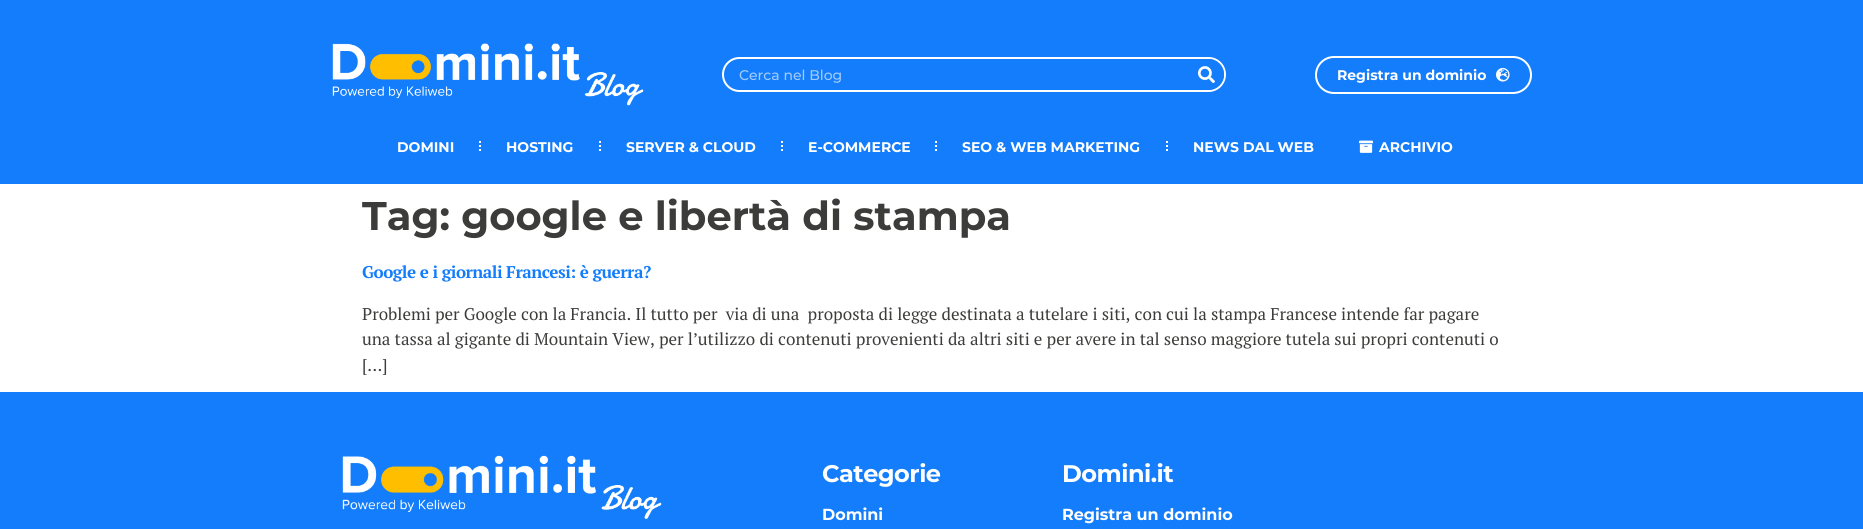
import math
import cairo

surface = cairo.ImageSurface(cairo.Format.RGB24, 1863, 529)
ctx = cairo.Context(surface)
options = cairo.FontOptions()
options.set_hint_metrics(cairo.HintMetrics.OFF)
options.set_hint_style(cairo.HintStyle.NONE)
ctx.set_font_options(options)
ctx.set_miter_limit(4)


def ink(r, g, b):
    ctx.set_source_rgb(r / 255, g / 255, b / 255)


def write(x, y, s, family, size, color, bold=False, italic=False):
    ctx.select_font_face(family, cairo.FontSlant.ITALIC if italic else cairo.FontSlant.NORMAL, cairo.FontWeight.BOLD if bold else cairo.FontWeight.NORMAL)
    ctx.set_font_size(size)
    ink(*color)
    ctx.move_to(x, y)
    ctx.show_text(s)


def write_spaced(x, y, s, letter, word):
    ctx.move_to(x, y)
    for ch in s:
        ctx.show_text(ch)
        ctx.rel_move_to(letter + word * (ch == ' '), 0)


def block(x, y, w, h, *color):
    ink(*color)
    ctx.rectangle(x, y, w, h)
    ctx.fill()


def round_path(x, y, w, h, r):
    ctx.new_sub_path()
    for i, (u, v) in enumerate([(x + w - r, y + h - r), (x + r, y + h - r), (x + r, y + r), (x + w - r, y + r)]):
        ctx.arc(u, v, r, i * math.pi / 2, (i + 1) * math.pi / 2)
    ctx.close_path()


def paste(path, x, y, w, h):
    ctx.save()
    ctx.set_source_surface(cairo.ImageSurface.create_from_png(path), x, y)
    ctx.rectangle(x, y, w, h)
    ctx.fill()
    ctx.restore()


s1 = dict(family="Montserrat Medium", size=14, color=(161, 203, 253))
s2 = dict(family="Montserrat", size=14, color=(255, 255, 255), bold=True)
s3 = dict(family="Montserrat", size=40, color=(60, 60, 59), bold=True)
s4 = dict(family="PT Serif", size=17, color=(60, 60, 59))
s5 = dict(family="Montserrat", size=16, color=(255, 255, 255), bold=True)

ink(255, 255, 255)
ctx.paint()
block(0, 0, 1863, 184, 20, 125, 251)
paste("pic1.png", 332, 43, 312, 63)
round_path(723, 58, 502, 33, 16.5)
ink(255, 255, 255)
ctx.stroke()
write(739, 80, "Cerca nel Blog", **s1)
ink(20, 125, 251)
ctx.new_path()
ctx.move_to(1189, 59)
ctx.line_to(1208.5, 59)
ctx.curve_to(1217, 59, 1224, 66, 1224, 74.5)
ctx.curve_to(1224, 83, 1217, 90, 1208.5, 90)
ctx.line_to(1189, 90)
ctx.close_path()
ctx.fill()
paste("pic2.png", 1198, 66, 17, 18)
round_path(1316, 57, 215, 36, 18)
ink(255, 255, 255)
ctx.stroke()
write(1337, 80, "Registra un dominio", **s2)
paste("pic3.png", 1496, 68, 14, 14)
write(397, 152, "DOMINI", **s2)
ctx.new_path()
ctx.move_to(480, 141)
ctx.line_to(480, 143)
ctx.move_to(480, 145)
ctx.line_to(480, 147)
ctx.move_to(480, 149)
ctx.line_to(480, 151)
ctx.stroke()
write(506, 152, "HOSTING", **s2)
ctx.new_path()
ctx.move_to(600, 141)
ctx.line_to(600, 143)
ctx.move_to(600, 145)
ctx.line_to(600, 147)
ctx.move_to(600, 149)
ctx.line_to(600, 151)
ctx.stroke()
write(626, 152, "SERVER & CLOUD", **s2)
ctx.new_path()
ctx.move_to(782, 141)
ctx.line_to(782, 143)
ctx.move_to(782, 145)
ctx.line_to(782, 147)
ctx.move_to(782, 149)
ctx.line_to(782, 151)
ctx.stroke()
write(808, 152, "E-COMMERCE", **s2)
ctx.new_path()
ctx.move_to(936, 141)
ctx.line_to(936, 143)
ctx.move_to(936, 145)
ctx.line_to(936, 147)
ctx.move_to(936, 149)
ctx.line_to(936, 151)
ctx.stroke()
write(962, 152, "SEO & WEB MARKETING", **s2)
ctx.new_path()
ctx.move_to(1167, 141)
ctx.line_to(1167, 143)
ctx.move_to(1167, 145)
ctx.line_to(1167, 147)
ctx.move_to(1167, 149)
ctx.line_to(1167, 151)
ctx.stroke()
write(1193, 152, "NEWS DAL WEB", **s2)
paste("pic4.png", 1359, 140, 14, 13)
write(1379, 152, "ARCHIVIO", **s2)
write(362, 230, "Tag: google e libertà di stampa", **s3)
ctx.select_font_face("PT Serif", cairo.FontSlant.NORMAL, cairo.FontWeight.BOLD)
ctx.set_font_size(17)
ink(20, 125, 251)
write_spaced(362, 278, "Google e i giornali Francesi: è guerra?", -0.5, 0)
write(362, 320, "Problemi per Google con la Francia. Il tutto per  via di una  proposta di legge destinata a tutelare i siti, con cui la stampa Francese intende far pagare", **s4)
write(362, 345, "una tassa al gigante di Mountain View, per l’utilizzo di contenuti provenienti da altri siti e per avere in tal senso maggiore tutela sui propri contenuti o", **s4)
write(362, 371, "[…]", **s4)
block(0, 392, 1863, 137, 20, 125, 251)
paste("pic5.png", 342, 455, 320, 64)
ctx.select_font_face("Montserrat", cairo.FontSlant.NORMAL, cairo.FontWeight.BOLD)
ctx.set_font_size(24)
ink(255, 255, 255)
write_spaced(822, 482, "Categorie", -0.5, 0)
write(822, 520, "Domini", **s5)
ctx.set_font_size(24)
write_spaced(1062, 482, "Domini.it", -0.5, 0)
write(1062, 520, "Registra un dominio", **s5)
surface.write_to_png("screenshot.png")
